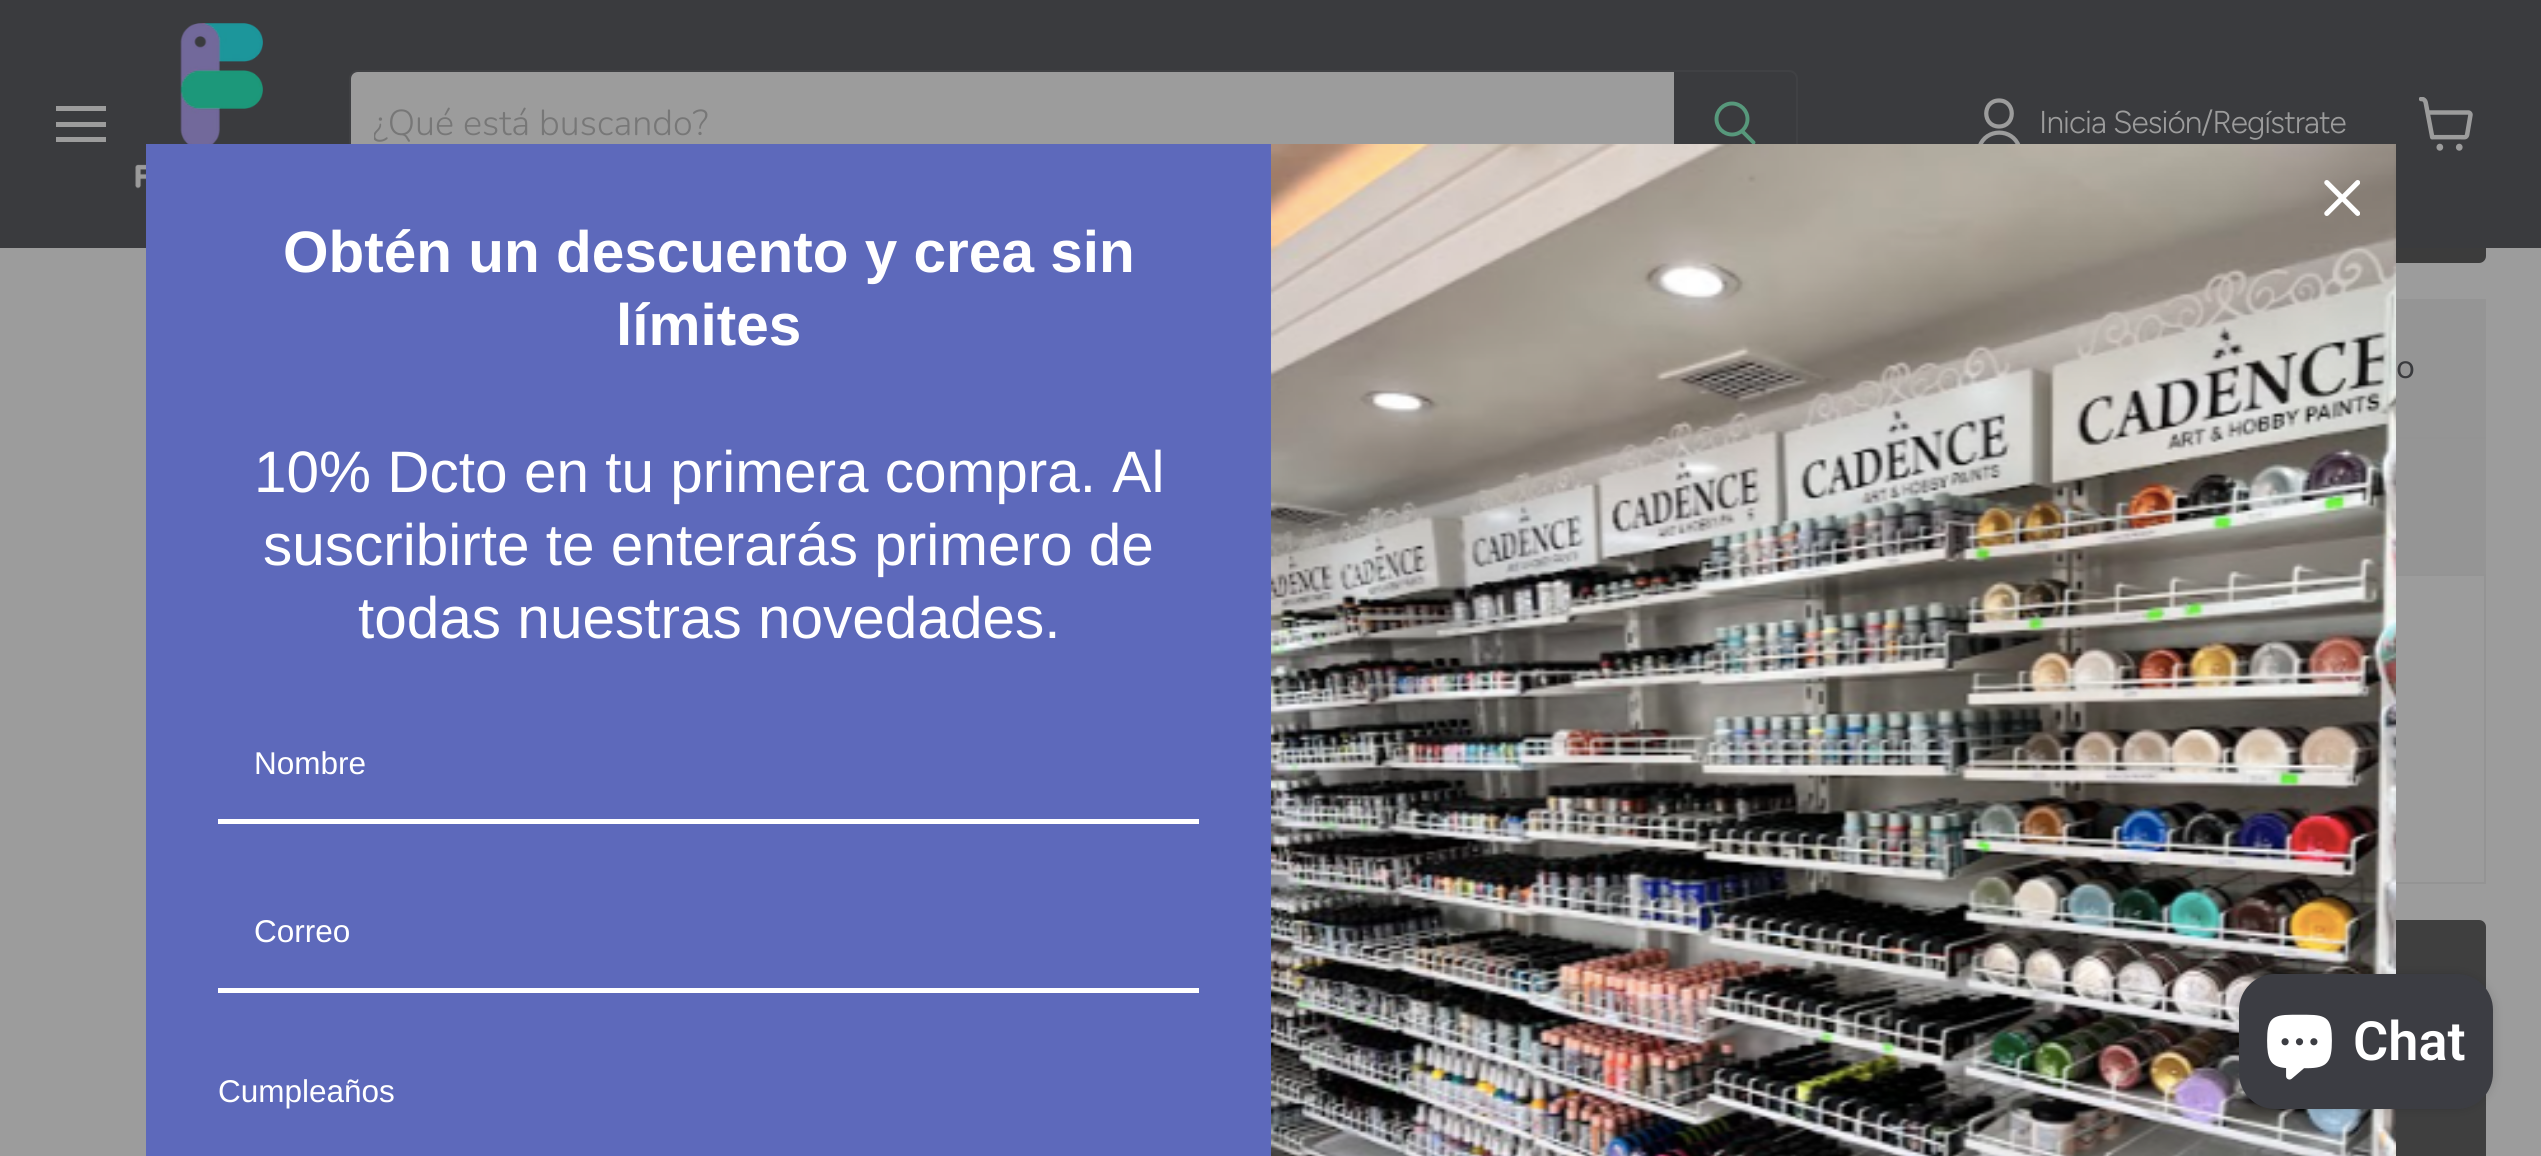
import math
import cairo

surface = cairo.ImageSurface(cairo.Format.RGB24, 2541, 1156)
ctx = cairo.Context(surface)
options = cairo.FontOptions()
options.set_hint_metrics(cairo.HintMetrics.OFF)
options.set_hint_style(cairo.HintStyle.NONE)
ctx.set_font_options(options)
ctx.set_miter_limit(4)


def ink(r, g, b):
    ctx.set_source_rgb(r / 255, g / 255, b / 255)


def write(x, y, s, family, size, color, bold=False, italic=False):
    ctx.select_font_face(family, cairo.FontSlant.ITALIC if italic else cairo.FontSlant.NORMAL, cairo.FontWeight.BOLD if bold else cairo.FontWeight.NORMAL)
    ctx.set_font_size(size)
    ink(*color)
    ctx.move_to(x, y)
    ctx.show_text(s)


def write_spaced(x, y, s, letter, word):
    ctx.move_to(x, y)
    for ch in s:
        ctx.show_text(ch)
        ctx.rel_move_to(letter + word * (ch == ' '), 0)


def block(x, y, w, h, *color):
    ink(*color)
    ctx.rectangle(x, y, w, h)
    ctx.fill()


def round_path(x, y, w, h, r):
    ctx.new_sub_path()
    for i, (u, v) in enumerate([(x + w - r, y + h - r), (x + r, y + h - r), (x + r, y + r), (x + w - r, y + r)]):
        ctx.arc(u, v, r, i * math.pi / 2, (i + 1) * math.pi / 2)
    ctx.close_path()


def blur_box(x, y, w, h, r, blur, alpha):
    ctx.push_group_with_content(cairo.Content.ALPHA)
    ctx.set_operator(cairo.Operator.SOURCE)
    for i in range(15, -16, -2):
        e = blur * i / 6
        if min(w, h) + 2 * e > 0:
            ctx.set_source_rgba(0, 0, 0, alpha * math.erfc((i - 1) / 8.5) / 2)
            round_path(x - e, y - e, w + 2 * e, h + 2 * e, max(0, min(r + e + blur * .6, min(w, h) / 2 + e)))
            ctx.fill()
    ctx.mask(ctx.pop_group())


def paste(path, x, y, w, h):
    ctx.save()
    ctx.set_source_surface(cairo.ImageSurface.create_from_png(path), x, y)
    ctx.rectangle(x, y, w, h)
    ctx.fill()
    ctx.restore()


s1 = dict(family="Nunito Light", size=36, color=(119, 119, 119))
s2 = dict(family="Liberation Sans", size=58.5, color=(255, 255, 255), bold=True)
s3 = dict(family="Liberation Sans", size=58.5, color=(255, 255, 255))
s4 = dict(family="Liberation Sans", size=31.5, color=(255, 255, 255))
s5 = dict(family="Nunito", size=34, color=(58, 59, 62))
s6 = dict(family="Roboto SemiBold", size=54, color=(255, 255, 255))

ink(156, 156, 156)
ctx.paint()
ink(60, 60, 60)
round_path(1653, 156, 832, 106, 6)
ctx.fill_preserve()
ctx.stroke()
block(0, 0, 2541, 248, 58, 59, 62)
block(56, 106, 50, 5, 156, 156, 156)
block(56, 122, 50, 5, 156, 156, 156)
block(56, 137, 50, 5, 156, 156, 156)
paste("pic1.png", 135, 23, 128, 166)
round_path(350, 71, 1447, 106, 8)
ctx.set_source_rgba(0.361, 0.361, 0.361, 0.2)
ctx.stroke()
ink(156, 156, 156)
ctx.new_path()
ctx.move_to(358, 72)
ctx.line_to(1674, 72)
ctx.line_to(1674, 176)
ctx.line_to(358, 176)
ctx.curve_to(354, 176, 351, 173, 351, 169)
ctx.line_to(351, 79)
ctx.curve_to(351, 75, 354, 72, 358, 72)
ctx.close_path()
ctx.fill()
ctx.save()
ctx.rectangle(374, 99, 1278, 50)
ctx.clip()
write(372, 135, "¿Qué está buscando?", **s1)
ctx.restore()
ctx.new_path()
ctx.move_to(1753.5, 142.5)
ctx.line_to(1742.5, 131.5)
ink(87, 152, 123)
ctx.set_line_width(3.9)
ctx.set_line_cap(cairo.LineCap.ROUND)
ctx.stroke()
ctx.arc(1732, 119, 15.5, 0, 2 * math.pi)
ctx.set_line_cap(cairo.LineCap.BUTT)
ctx.stroke()
ctx.new_path()
ctx.move_to(1999, 126.5)
ctx.curve_to(2016, 126.5, 2016, 100.5, 1999, 100.5)
ctx.curve_to(1982, 100.5, 1982, 126.5, 1999, 126.5)
ctx.close_path()
ctx.move_to(2019, 146.5)
ctx.curve_to(2012.5, 128, 1986, 128, 1979.5, 146.5)
ink(156, 156, 156)
ctx.set_line_width(4.2)
ctx.set_line_cap(cairo.LineCap.ROUND)
ctx.set_line_join(cairo.LineJoin.ROUND)
ctx.stroke()
ctx.select_font_face("Figtree Light")
ctx.set_font_size(31.6)
write_spaced(2039, 133, "Inicia Sesión/Regístrate", -0.95, 0)
paste("pic2.png", 2419, 97, 54, 54)
block(2393, 299, 93, 138, 149, 149, 149)
block(2393, 437, 93, 2, 148, 148, 148)
block(2393, 439, 93, 135, 149, 149, 149)
block(2393, 574, 93, 2, 148, 148, 148)
block(2484, 576, 2, 308, 148, 148, 148)
block(2393, 882, 93, 2, 148, 148, 148)
ink(63, 63, 63)
round_path(1368, 920, 1118, 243, 7)
ctx.fill()
paste("pic4.png", 1271, 144, 1125, 1012)
paste("pic3.png", 2324, 180, 36, 36)
block(146, 144, 1125, 1012, 93, 105, 187)
write(283, 272, "Obtén un descuento y crea sin", **s2)
write(616, 345, "límites", **s2)
write(254, 492, "10% Dcto en tu primera compra. Al", **s3)
write(263, 565, "suscribirte te enterarás primero de", **s3)
write(358, 638, "todas nuestras novedades.", **s3)
block(218, 819, 981, 5, 255, 255, 255)
write(254, 774, "Nombre", **s4)
block(218, 988, 981, 5, 255, 255, 255)
write(254, 942, "Correo", **s4)
write(218, 1102, "Cumpleaños", **s4)
write(2396, 378, "o", **s5)
ink(0, 0, 0)
blur_box(2239, 974, 254, 135, 36, 5.5, 0.15)
ink(60, 61, 67)
round_path(2239, 974, 254, 135, 36)
ctx.fill()
paste("pic5.png", 2267, 1014, 65, 66)
write(2353, 1060, "Chat", **s6)
surface.write_to_png("screenshot.png")
